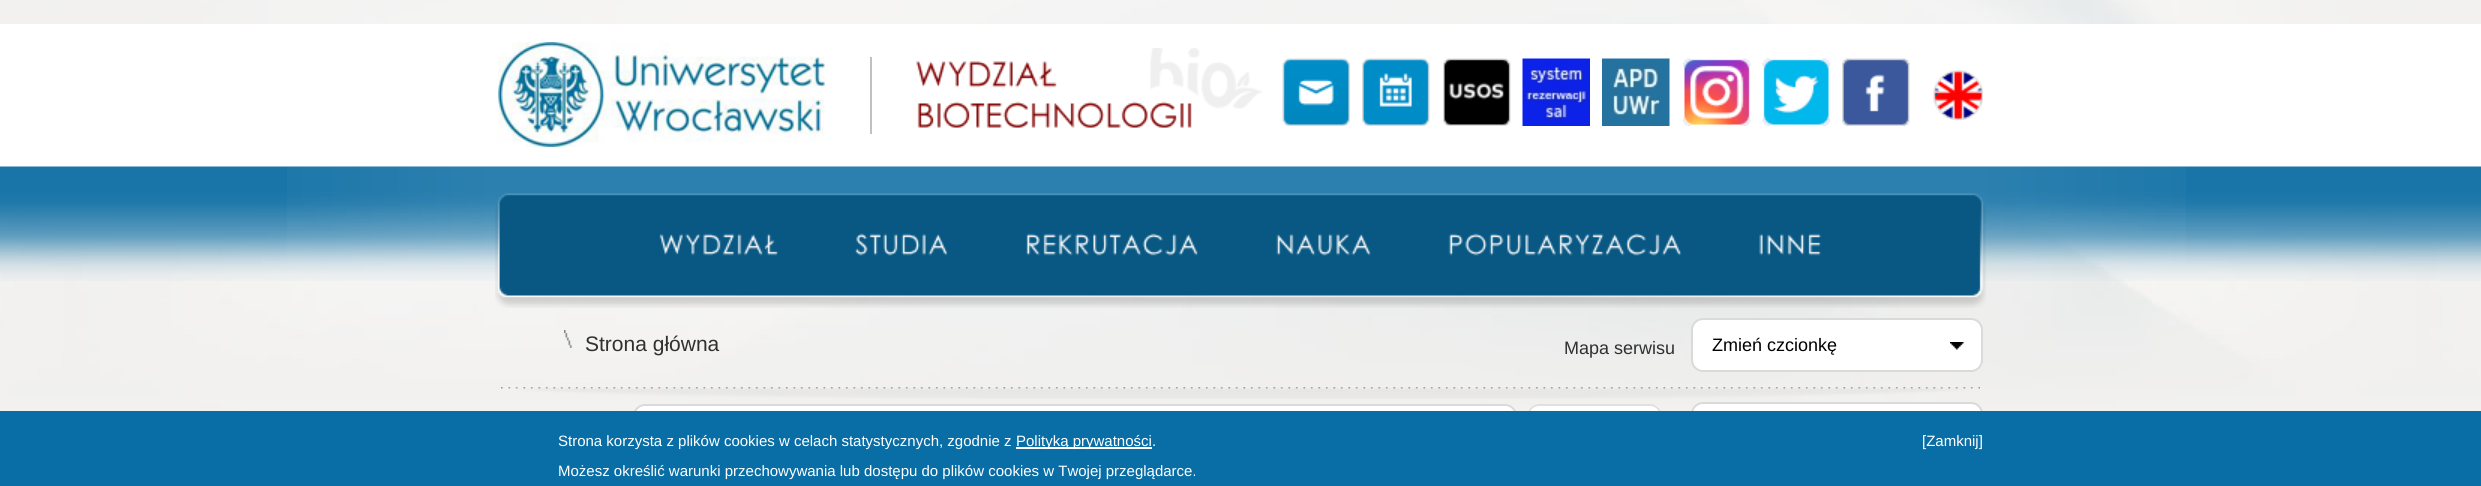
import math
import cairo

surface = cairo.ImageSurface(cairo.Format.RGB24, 2481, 486)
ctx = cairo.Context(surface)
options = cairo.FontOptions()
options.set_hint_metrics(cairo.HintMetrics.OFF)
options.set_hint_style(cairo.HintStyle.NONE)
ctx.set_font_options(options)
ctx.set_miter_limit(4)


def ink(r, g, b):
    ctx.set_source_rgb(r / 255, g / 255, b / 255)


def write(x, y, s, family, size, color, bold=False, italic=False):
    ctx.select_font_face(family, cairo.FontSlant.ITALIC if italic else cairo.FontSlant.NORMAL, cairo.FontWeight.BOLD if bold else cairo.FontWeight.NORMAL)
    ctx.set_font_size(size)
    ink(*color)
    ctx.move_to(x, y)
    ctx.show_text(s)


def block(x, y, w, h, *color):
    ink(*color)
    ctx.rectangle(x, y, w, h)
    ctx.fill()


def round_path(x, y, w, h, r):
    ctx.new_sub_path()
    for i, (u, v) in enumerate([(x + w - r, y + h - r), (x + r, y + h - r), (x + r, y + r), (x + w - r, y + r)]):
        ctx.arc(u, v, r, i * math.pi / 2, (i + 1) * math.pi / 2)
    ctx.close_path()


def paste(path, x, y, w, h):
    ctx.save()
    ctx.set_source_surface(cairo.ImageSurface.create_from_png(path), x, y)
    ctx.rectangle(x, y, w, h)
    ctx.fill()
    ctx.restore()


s1 = dict(family="Liberation Sans", size=18, color=(0, 102, 158))
s2 = dict(family="Liberation Sans", size=21, color=(48, 48, 48))
s3 = dict(family="Liberation Sans", size=18, color=(48, 48, 48))
s4 = dict(family="Liberation Sans", size=18, color=(0, 0, 0))
s5 = dict(family="Liberation Sans", size=15, color=(255, 255, 255))

ink(255, 255, 255)
ctx.paint()
paste("pic1.png", 0, 0, 2481, 411)
block(0, 24, 2481, 143, 255, 255, 255)
paste("pic2.png", 1150, 48, 113, 61)
paste("pic3.png", 498, 42, 327, 105)
block(870, 57, 2, 77, 194, 193, 193)
paste("pic4.png", 916, 61, 276, 67)
paste("pic5.png", 1282, 58, 68, 68)
paste("pic6.png", 1362, 58, 68, 68)
paste("pic7.png", 1443, 58, 68, 68)
paste("pic8.png", 1522, 58, 68, 68)
paste("pic9.png", 1602, 58, 68, 68)
paste("pic10.png", 1683, 58, 68, 68)
paste("pic11.png", 1762, 58, 68, 68)
paste("pic12.png", 1842, 58, 68, 68)
paste("pic13.png", 1933, 70, 50, 50)
write(1934, 95, ".", **s1)
paste("pic14.png", 0, 166, 2481, 115)
paste("pic15.png", 287, 166, 1899, 101)
paste("pic16.png", 495, 193, 1491, 115)
paste("pic17.png", 659, 233, 119, 23)
paste("pic18.png", 855, 233, 93, 23)
paste("pic19.png", 1026, 233, 172, 23)
paste("pic20.png", 1276, 233, 95, 23)
paste("pic21.png", 1448, 233, 234, 23)
paste("pic22.png", 1759, 233, 63, 23)
paste("pic23.png", 564, 330, 8, 18)
write(585, 351, "Strona główna", **s2)
write(1564, 354, "Mapa serwisu", **s3)
ink(255, 255, 255)
round_path(1692, 319, 290, 52, 11)
ctx.fill_preserve()
ink(218, 218, 218)
ctx.stroke()
paste("pic24.png", 1950, 342, 14, 8)
write(1712, 351, "Zmień czcionkę", **s4)
paste("pic25.png", 501, 387, 1479, 12)
ink(255, 255, 255)
round_path(634, 405, 882, 52, 11)
ctx.fill_preserve()
ink(218, 218, 218)
ctx.stroke()
paste("pic26.png", 1527, 405, 135, 6)
round_path(1528, 405, 133, 52, 11)
ink(224, 224, 223)
ctx.stroke()
ink(255, 255, 255)
round_path(1692, 403, 290, 52, 11)
ctx.fill_preserve()
ink(218, 218, 218)
ctx.stroke()
block(0, 411, 2481, 75, 9, 110, 165)
write(558, 446, "Strona korzysta z plików cookies w celach statystycznych, zgodnie z", **s5)
block(1016, 447, 136, 2, 255, 255, 255)
write(1016, 446, "Polityką prywatności.", **s5)
write(558, 476, "Możesz określić warunki przechowywania lub dostępu do plików cookies w Twojej przeglądarce.", **s5)
write(1922, 446, "[Zamknij]", **s5)
surface.write_to_png("screenshot.png")
